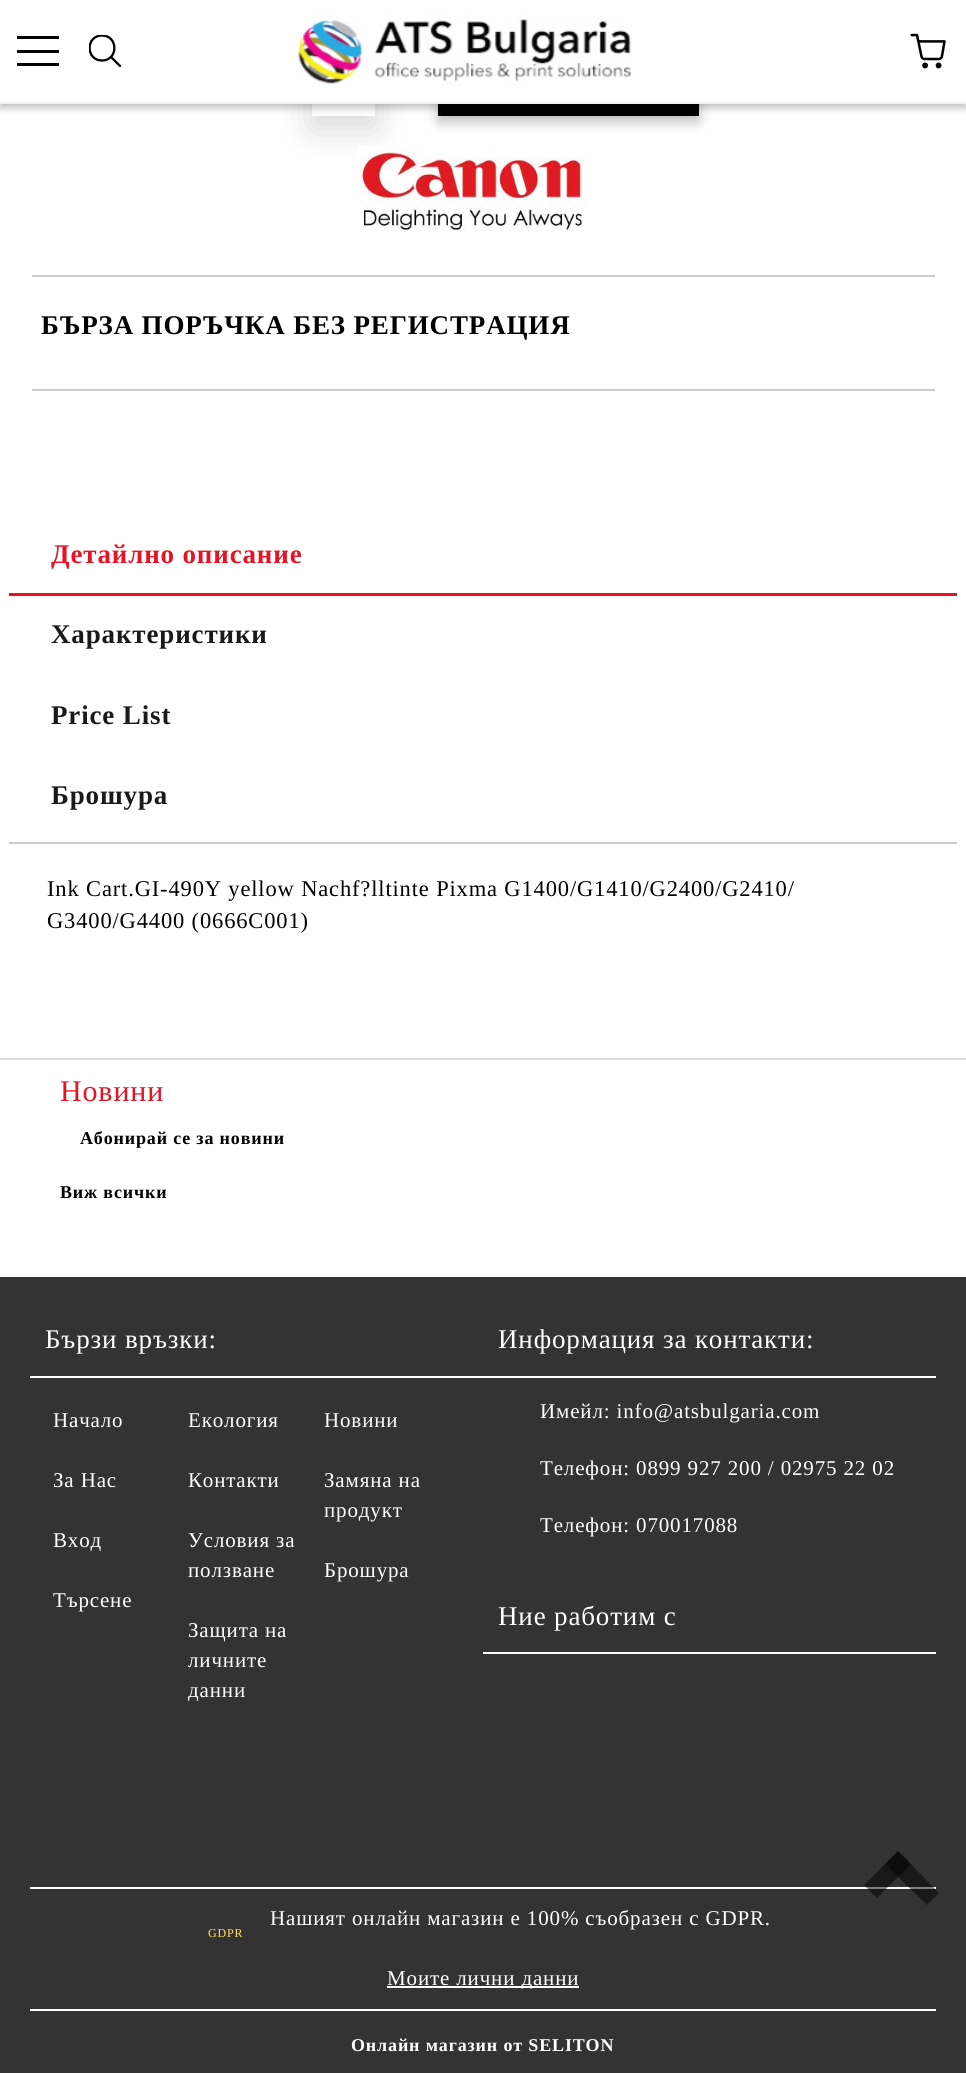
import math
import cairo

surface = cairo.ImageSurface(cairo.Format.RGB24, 966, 2073)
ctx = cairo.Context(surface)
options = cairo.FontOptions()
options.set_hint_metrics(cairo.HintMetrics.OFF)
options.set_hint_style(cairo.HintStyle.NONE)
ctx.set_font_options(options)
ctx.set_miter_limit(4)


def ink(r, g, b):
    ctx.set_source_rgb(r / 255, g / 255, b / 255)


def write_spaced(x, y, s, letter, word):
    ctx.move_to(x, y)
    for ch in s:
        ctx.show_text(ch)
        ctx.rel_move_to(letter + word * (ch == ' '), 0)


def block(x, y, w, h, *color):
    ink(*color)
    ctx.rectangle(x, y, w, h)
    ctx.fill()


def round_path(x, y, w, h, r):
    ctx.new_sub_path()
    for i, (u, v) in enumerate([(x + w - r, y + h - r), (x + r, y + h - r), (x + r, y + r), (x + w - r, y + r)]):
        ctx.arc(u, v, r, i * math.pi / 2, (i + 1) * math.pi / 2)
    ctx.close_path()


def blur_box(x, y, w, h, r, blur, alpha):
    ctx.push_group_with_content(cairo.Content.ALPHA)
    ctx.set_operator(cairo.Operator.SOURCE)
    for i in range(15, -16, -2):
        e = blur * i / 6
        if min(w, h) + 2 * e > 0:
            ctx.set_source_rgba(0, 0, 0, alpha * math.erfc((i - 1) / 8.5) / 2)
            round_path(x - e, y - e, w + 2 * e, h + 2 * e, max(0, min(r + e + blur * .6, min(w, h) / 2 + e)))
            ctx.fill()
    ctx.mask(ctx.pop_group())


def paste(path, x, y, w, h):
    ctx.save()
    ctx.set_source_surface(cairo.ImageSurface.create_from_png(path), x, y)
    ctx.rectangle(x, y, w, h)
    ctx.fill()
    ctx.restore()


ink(255, 255, 255)
ctx.paint()
ink(0, 0, 0)
blur_box(312, 65, 63, 63, 0, 18, 0.16)
block(312, 104, 63, 12, 255, 255, 255)
ink(0, 0, 0)
blur_box(438, 59, 261, 63, 0, 6, 0.26)
block(438, 104, 261, 12, 0, 0, 0)
ink(0, 0, 0)
blur_box(0, 5, 966, 103, 0, 4, 0.25)
block(0, 102, 966, 2, 241, 241, 241)
block(0, 0, 966, 102, 255, 255, 255)
block(17, 36, 42, 3, 0, 0, 0)
block(17, 50, 42, 3, 0, 0, 0)
block(17, 63, 42, 3, 0, 0, 0)
ctx.save()
ctx.rectangle(89, 35, 33, 33)
ctx.clip()
ctx.new_path()
ctx.move_to(102, 35.5)
ctx.curve_to(85.5, 35.5, 85.5, 60.5, 102, 60.5)
ctx.curve_to(118.5, 60.5, 118.5, 35.5, 102, 35.5)
ctx.close_path()
ctx.set_line_width(2.3)
ctx.stroke()
ctx.restore()
ctx.new_path()
ctx.move_to(111, 57)
ctx.line_to(120, 66)
ctx.set_line_width(2.3)
ctx.set_line_cap(cairo.LineCap.ROUND)
ctx.stroke()
paste("pic1.png", 295, 15, 337, 71)
paste("pic2.png", 910, 33, 36, 36)
paste("pic3.png", 357, 145, 230, 86)
block(32, 275, 903, 2, 204, 204, 204)
ctx.select_font_face("Liberation Serif", cairo.FontSlant.NORMAL, cairo.FontWeight.BOLD)
ctx.set_font_size(27)
ink(0, 0, 0)
write_spaced(41, 334, "БЪРЗА ПОРЪЧКА БЕЗ РЕГИСТРАЦИЯ", 0.85, 0)
block(32, 389, 903, 2, 204, 204, 204)
block(9, 842, 948, 2, 204, 204, 204)
block(9, 593, 948, 3, 232, 18, 37)
write_spaced(51, 563, "Детайлно описание", 0.85, 0)
ink(26, 26, 26)
write_spaced(51, 643, "Характеристики", 0.85, 0)
write_spaced(51, 724, "Price List", 0.85, 0)
write_spaced(51, 804, "Брошура", 0.85, 0)
ctx.select_font_face("Liberation Serif")
ctx.set_font_size(22.5)
ink(0, 0, 0)
write_spaced(47, 896, "Ink Cart.GI-490Y yellow Nachf?lltinte Pixma G1400/G1410/G2400/G2410/", 0.85, 0)
write_spaced(47, 928, "G3400/G4400 (0666C001)", 0.85, 0)
block(0, 1058, 966, 2, 221, 221, 221)
ctx.set_font_size(30)
ink(232, 18, 37)
write_spaced(60, 1101, "Новини", 0.85, 0)
ctx.select_font_face("Liberation Serif", cairo.FontSlant.NORMAL, cairo.FontWeight.BOLD)
ctx.set_font_size(18)
ink(0, 0, 0)
write_spaced(80, 1144, "Абонирай се за новини", 0.85, 0)
write_spaced(60, 1198, "Виж всички", 0.85, 0)
block(0, 1277, 966, 796, 51, 51, 51)
block(30, 1376, 906, 2, 255, 255, 255)
ctx.select_font_face("Liberation Serif")
ctx.set_font_size(27)
write_spaced(45, 1348, "Бързи връзки:", 0.85, 0)
ctx.set_font_size(21)
write_spaced(53, 1427, "Начало", 0.85, 0)
write_spaced(53, 1487, "За Нас", 0.85, 0)
write_spaced(53, 1547, "Вход", 0.85, 0)
write_spaced(53, 1607, "Търсене", 0.85, 0)
write_spaced(188, 1427, "Екология", 0.85, 0)
write_spaced(188, 1487, "Контакти", 0.85, 0)
write_spaced(188, 1547, "Условия за", 0.85, 0)
write_spaced(188, 1577, "ползване", 0.85, 0)
write_spaced(188, 1637, "Защита на", 0.85, 0)
write_spaced(188, 1667, "личните", 0.85, 0)
write_spaced(188, 1697, "данни", 0.85, 0)
write_spaced(324, 1427, "Новини", 0.85, 0)
write_spaced(324, 1487, "Замяна на", 0.85, 0)
write_spaced(324, 1517, "продукт", 0.85, 0)
write_spaced(324, 1577, "Брошура", 0.85, 0)
ctx.set_font_size(27)
write_spaced(498, 1348, "Информация за контакти:", 0.85, 0)
ctx.set_font_size(21)
write_spaced(540, 1418, "Имейл: info@atsbulgaria.com", 0.85, 0)
write_spaced(540, 1475, "Телефон: 0899 927 200 / 02975 22 02", 0.85, 0)
write_spaced(540, 1532, "Телефон: 070017088", 0.85, 0)
block(483, 1652, 453, 2, 255, 255, 255)
ctx.set_font_size(27)
write_spaced(498, 1625, "Ние работим с", 0.85, 0)
block(30, 1887, 906, 2, 255, 255, 255)
ctx.set_font_size(21)
write_spaced(270, 1925, "Нашият онлайн магазин е 100% съобразен с GDPR.", 0.85, 0)
ctx.set_font_size(12)
ink(255, 225, 90)
write_spaced(208, 1937, "GDPR", 0.85, 0)
block(387, 1986, 192, 2, 255, 255, 255)
ctx.set_font_size(21)
write_spaced(387, 1985, "Моите лични данни", 0.85, 0)
block(30, 2009, 906, 2, 255, 255, 255)
ctx.select_font_face("Liberation Serif", cairo.FontSlant.NORMAL, cairo.FontWeight.BOLD)
ctx.set_font_size(18)
write_spaced(351, 2051, "Онлайн магазин от SELITON", 0.85, 0)
ctx.set_source_rgba(0, 0, 0, 0.5)
ctx.new_path()
ctx.move_to(877, 1898)
ctx.line_to(864, 1885)
ctx.line_to(898, 1851)
ctx.line_to(911, 1864)
ctx.close_path()
ctx.fill()
ctx.new_path()
ctx.move_to(927, 1905)
ctx.line_to(885, 1864)
ctx.line_to(898, 1851)
ctx.line_to(939, 1893)
ctx.close_path()
ctx.fill()
surface.write_to_png("screenshot.png")
